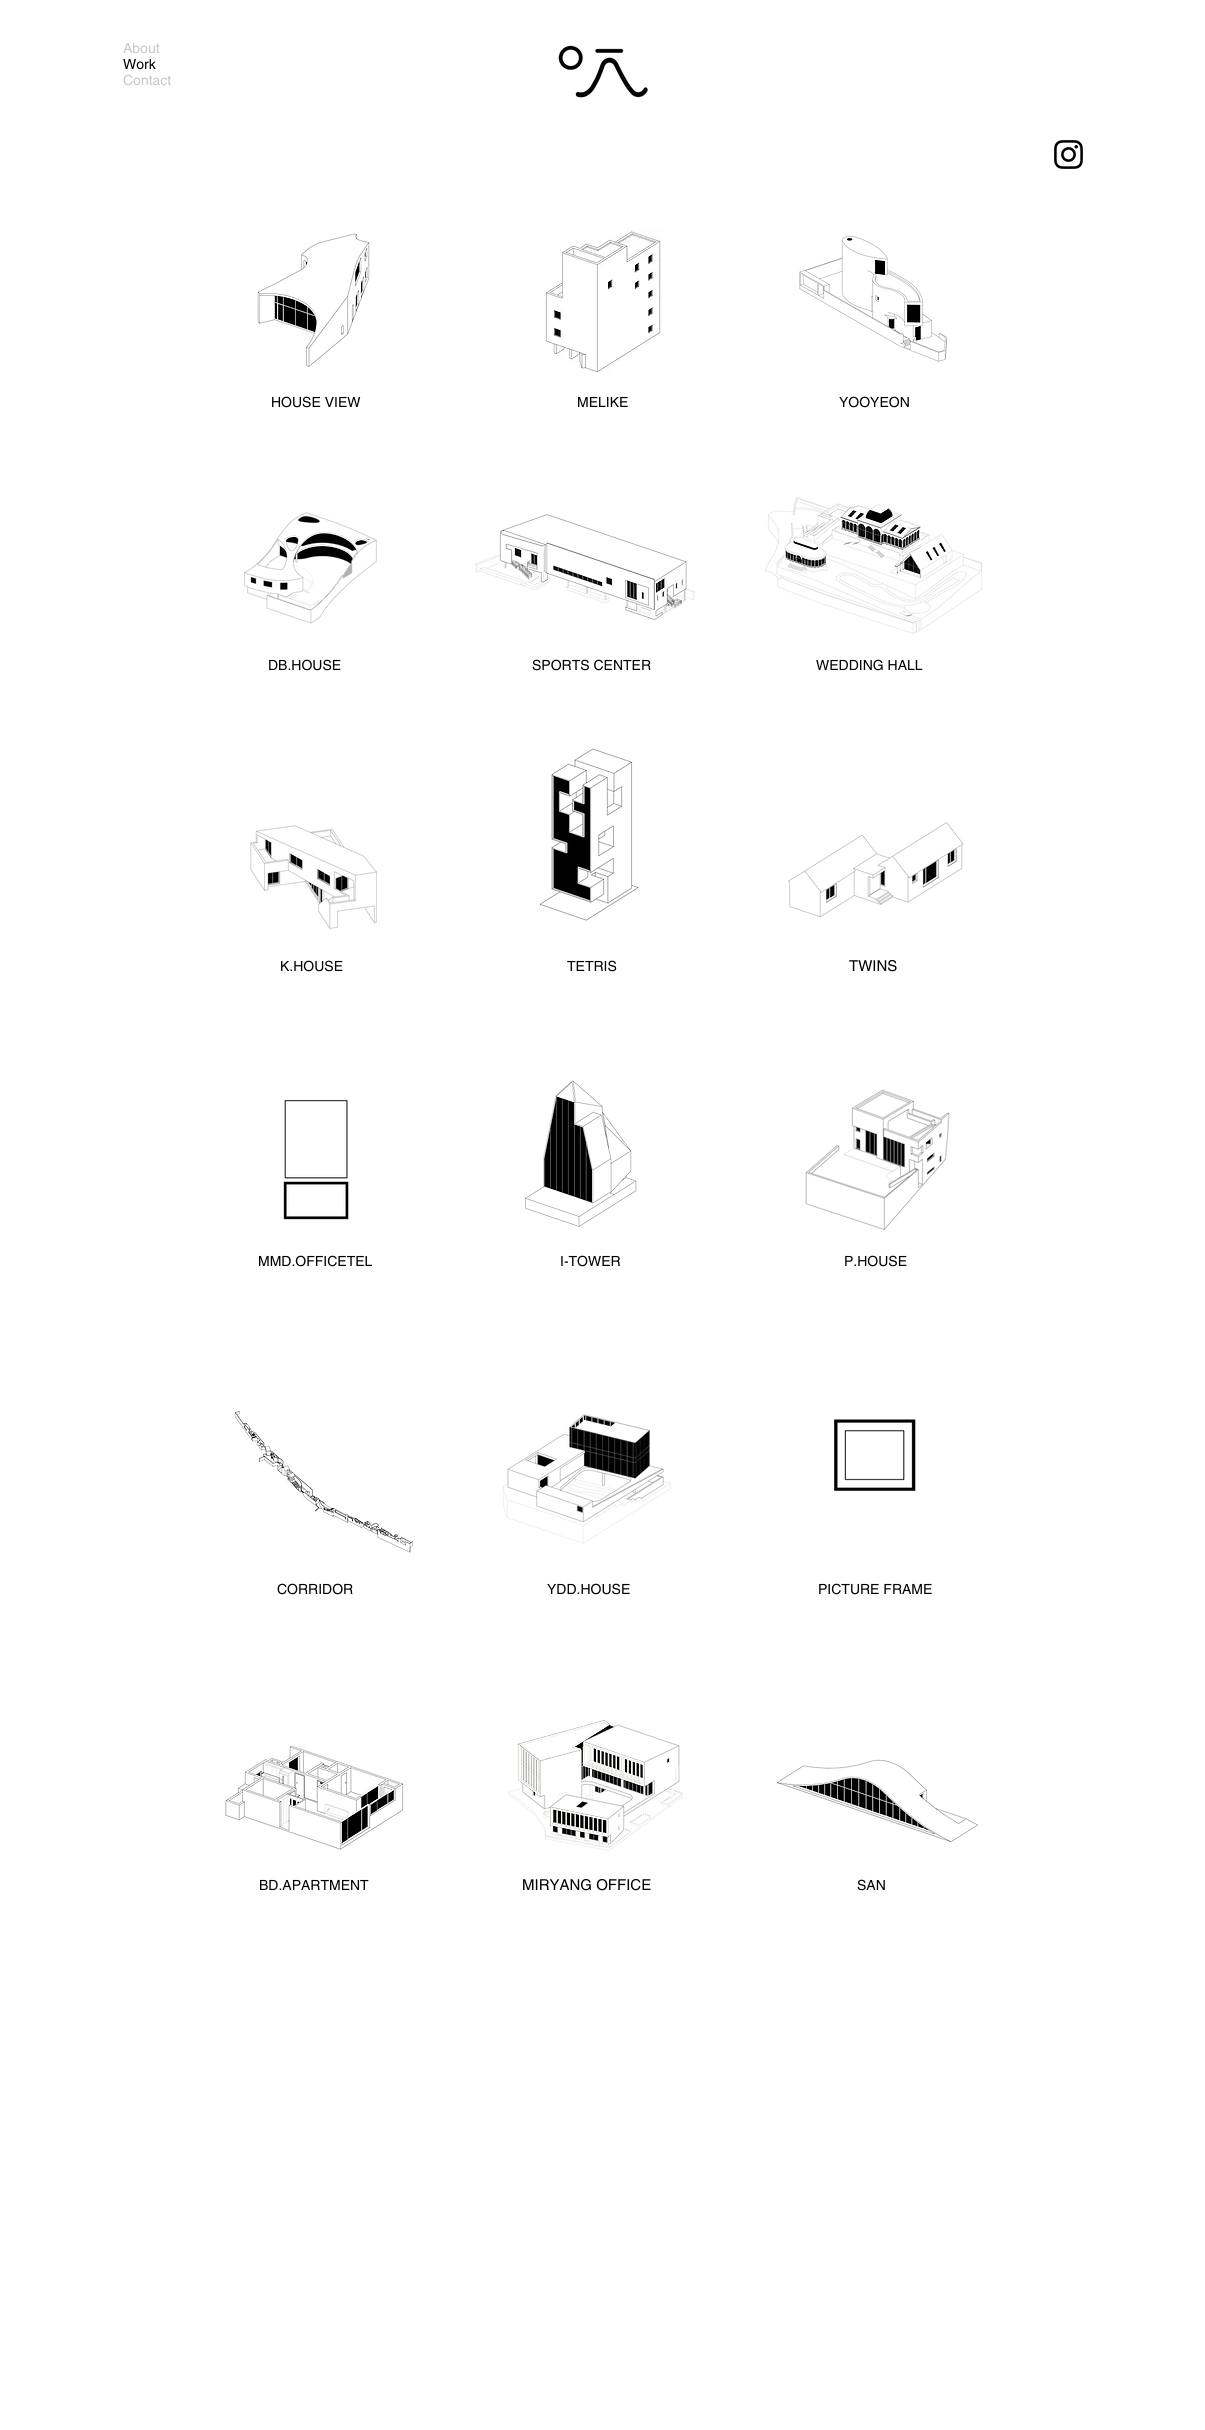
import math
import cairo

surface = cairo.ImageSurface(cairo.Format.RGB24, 1205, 2430)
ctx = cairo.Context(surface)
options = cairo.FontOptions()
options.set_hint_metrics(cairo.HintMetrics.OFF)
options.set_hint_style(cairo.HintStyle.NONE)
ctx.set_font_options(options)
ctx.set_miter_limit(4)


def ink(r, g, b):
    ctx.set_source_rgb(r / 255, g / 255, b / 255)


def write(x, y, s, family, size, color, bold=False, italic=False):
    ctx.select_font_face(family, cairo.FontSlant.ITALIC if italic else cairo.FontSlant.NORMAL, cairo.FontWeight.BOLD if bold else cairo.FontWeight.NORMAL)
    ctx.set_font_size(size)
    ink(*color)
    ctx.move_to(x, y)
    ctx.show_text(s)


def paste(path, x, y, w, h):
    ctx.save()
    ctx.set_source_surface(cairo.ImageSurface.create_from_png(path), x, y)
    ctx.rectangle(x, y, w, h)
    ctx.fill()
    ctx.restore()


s1 = dict(family="helvetica", size=14, color=(199, 199, 199))
s2 = dict(family="helvetica", size=14, color=(0, 0, 0))
s3 = dict(family="helvetica", size=15, color=(0, 0, 0))

ink(255, 255, 255)
ctx.paint()
write(123, 53, "About", **s1)
write(123, 69, "Work", **s2)
write(123, 85, "Contact", **s1)
paste("pic1.png", 558, 45, 90, 53)
paste("pic2.png", 1054, 140, 29, 29)
paste("pic3.png", 257, 233, 113, 134)
paste("pic4.png", 544, 229, 118, 144)
paste("pic5.png", 799, 235, 149, 127)
write(271, 407, "HOUSE VIEW", **s2)
write(577, 407, "MELIKE", **s2)
write(839, 407, "YOOYEON", **s2)
paste("pic6.png", 244, 512, 133, 112)
paste("pic7.png", 475, 514, 220, 106)
paste("pic8.png", 765, 497, 218, 137)
write(268, 670, "DB.HOUSE", **s2)
write(532, 670, "SPORTS CENTER", **s2)
write(816, 670, "WEDDING HALL", **s2)
paste("pic9.png", 250, 825, 127, 104)
paste("pic10.png", 539, 748, 100, 173)
paste("pic11.png", 788, 822, 176, 96)
write(280, 971, "K.HOUSE", **s2)
write(567, 971, "TETRIS", **s2)
write(849, 971, "TWINS", **s3)
paste("pic12.png", 283, 1100, 66, 120)
paste("pic13.png", 525, 1080, 112, 147)
paste("pic14.png", 805, 1089, 145, 141)
write(258, 1266, "MMD.OFFICETEL", **s2)
write(560, 1266, "I-TOWER", **s2)
write(844, 1266, "P.HOUSE", **s2)
paste("pic15.png", 234, 1411, 179, 142)
paste("pic16.png", 502, 1414, 169, 130)
paste("pic17.png", 834, 1419, 82, 72)
write(277, 1594, "CORRIDOR", **s2)
write(547, 1594, "YDD.HOUSE", **s2)
write(818, 1594, "PICTURE FRAME", **s2)
paste("pic18.png", 225, 1745, 179, 105)
paste("pic19.png", 508, 1720, 175, 131)
paste("pic20.png", 776, 1759, 202, 84)
write(259, 1890, "BD.APARTMENT", **s2)
write(522, 1890, "MIRYANG OFFICE", **s3)
write(857, 1890, "SAN", **s2)
surface.write_to_png("screenshot.png")
